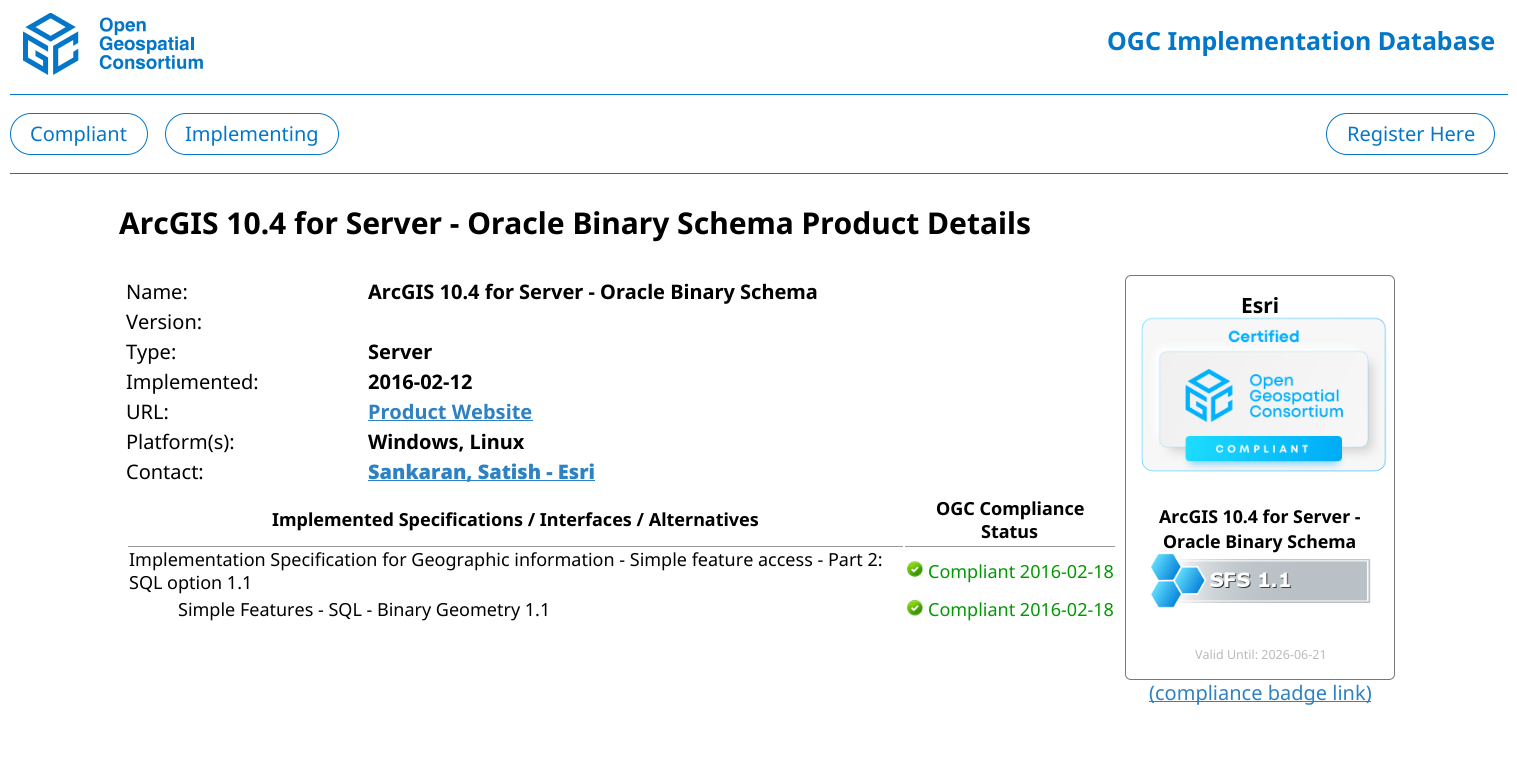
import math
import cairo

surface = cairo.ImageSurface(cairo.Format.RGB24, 1517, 778)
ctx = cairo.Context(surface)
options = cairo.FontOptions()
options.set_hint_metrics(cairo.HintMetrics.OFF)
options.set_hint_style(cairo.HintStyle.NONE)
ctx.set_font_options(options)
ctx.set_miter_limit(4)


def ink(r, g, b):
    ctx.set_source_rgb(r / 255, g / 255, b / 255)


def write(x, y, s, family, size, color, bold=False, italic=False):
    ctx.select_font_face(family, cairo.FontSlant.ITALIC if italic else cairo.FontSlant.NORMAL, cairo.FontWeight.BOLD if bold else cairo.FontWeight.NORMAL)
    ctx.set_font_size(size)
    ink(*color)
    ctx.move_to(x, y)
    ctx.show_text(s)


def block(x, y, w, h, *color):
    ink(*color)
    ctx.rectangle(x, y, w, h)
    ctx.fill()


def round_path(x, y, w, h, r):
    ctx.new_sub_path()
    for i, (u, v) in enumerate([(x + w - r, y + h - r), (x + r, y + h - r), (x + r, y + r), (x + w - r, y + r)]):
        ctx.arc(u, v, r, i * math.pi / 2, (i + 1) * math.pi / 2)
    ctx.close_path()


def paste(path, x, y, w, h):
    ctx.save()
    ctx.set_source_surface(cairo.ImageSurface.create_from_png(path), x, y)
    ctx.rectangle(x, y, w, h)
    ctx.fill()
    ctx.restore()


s1 = dict(family="Noto Sans", size=25, color=(4, 118, 200), bold=True)
s2 = dict(family="Noto Sans", size=20, color=(4, 118, 200))
s3 = dict(family="Noto Sans", size=30, color=(0, 0, 0), bold=True)
s4 = dict(family="Noto Sans", size=20, color=(0, 0, 0))
s5 = dict(family="Noto Sans", size=20, color=(0, 0, 0), bold=True)
s6 = dict(family="Noto Sans", size=20, color=(46, 129, 194), bold=True)
s7 = dict(family="Noto Sans Black", size=20, color=(46, 129, 194))
s8 = dict(family="Noto Sans", size=18, color=(0, 0, 0), bold=True)
s9 = dict(family="Noto Sans", size=18, color=(0, 0, 0))
s10 = dict(family="Noto Sans", size=18, color=(0, 153, 0))
s11 = dict(family="Noto Sans", size=21, color=(0, 0, 0), bold=True)
s12 = dict(family="Noto Sans", size=17.75, color=(0, 0, 0), bold=True)
s13 = dict(family="Noto Sans", size=12.5, color=(187, 187, 187))
s14 = dict(family="Noto Sans", size=20, color=(46, 129, 194))

ink(255, 255, 255)
ctx.paint()
paste("pic1.png", 23, 13, 180, 62)
write(1107, 50, "OGC Implementation Database", **s1)
block(10, 94, 1498, 1, 4, 118, 200)
round_path(10.5, 113.5, 137, 41, 20.5)
ctx.set_line_width(1)
ctx.stroke()
write(30, 141, "Compliant", **s2)
round_path(165.5, 113.5, 173, 41, 20.5)
ctx.stroke()
write(185, 141, "Implementing", **s2)
round_path(1326.5, 113.5, 168, 41, 20.5)
ctx.stroke()
write(1347, 141, "Register Here", **s2)
block(10, 173, 1498, 1, 4, 118, 200)
write(119, 234, "ArcGIS 10.4 for Server - Oracle Binary Schema Product Details", **s3)
write(126, 299, "Name:", **s4)
write(368, 299, "ArcGIS 10.4 for Server - Oracle Binary Schema", **s5)
write(126, 329, "Version:", **s4)
write(126, 359, "Type:", **s4)
write(368, 359, "Server", **s5)
write(126, 389, "Implemented:", **s4)
write(368, 389, "2016-02-12", **s5)
write(126, 419, "URL:", **s4)
write(368, 419, "Product Website", **s6)
block(368, 420, 165, 1, 46, 129, 194)
write(126, 449, "Platform(s):", **s4)
write(368, 449, "Windows, Linux", **s5)
write(126, 479, "Contact:", **s4)
block(368, 480, 227, 1, 46, 129, 194)
write(368, 479, "Sankaran, Satish - Esri", **s7)
write(272, 526, "Implemented Specifications / Interfaces / Alternatives", **s8)
write(936, 515, "OGC Compliance", **s8)
write(981, 538, "Status", **s8)
block(128, 546, 775, 1, 153, 153, 153)
write(129, 566, "Implementation Specification for Geographic information - Simple feature access - Part 2:", **s9)
write(129, 589, "SQL option 1.1", **s9)
block(905, 546, 210, 1, 153, 153, 153)
paste("pic2.png", 907, 561, 16, 16)
write(928, 578, "Compliant 2016-02-18", **s10)
write(178, 616, "Simple Features - SQL - Binary Geometry 1.1", **s9)
paste("pic3.png", 907, 599, 16, 17)
write(928, 616, "Compliant 2016-02-18", **s10)
round_path(1125.5, 275.5, 269, 404, 5.5)
ink(119, 119, 119)
ctx.stroke()
write(1241, 313, "Esri", **s11)
paste("pic4.png", 1141, 317, 246, 155)
write(1159, 523, "ArcGIS 10.4 for Server -", **s12)
write(1163, 548, "Oracle Binary Schema", **s12)
paste("pic5.png", 1151, 554, 220, 54)
write(1195, 659, "Valid Until: 2026-06-21", **s13)
block(1149, 701, 222, 1, 46, 129, 194)
write(1149, 700, "(compliance badge link)", **s14)
surface.write_to_png("screenshot.png")
